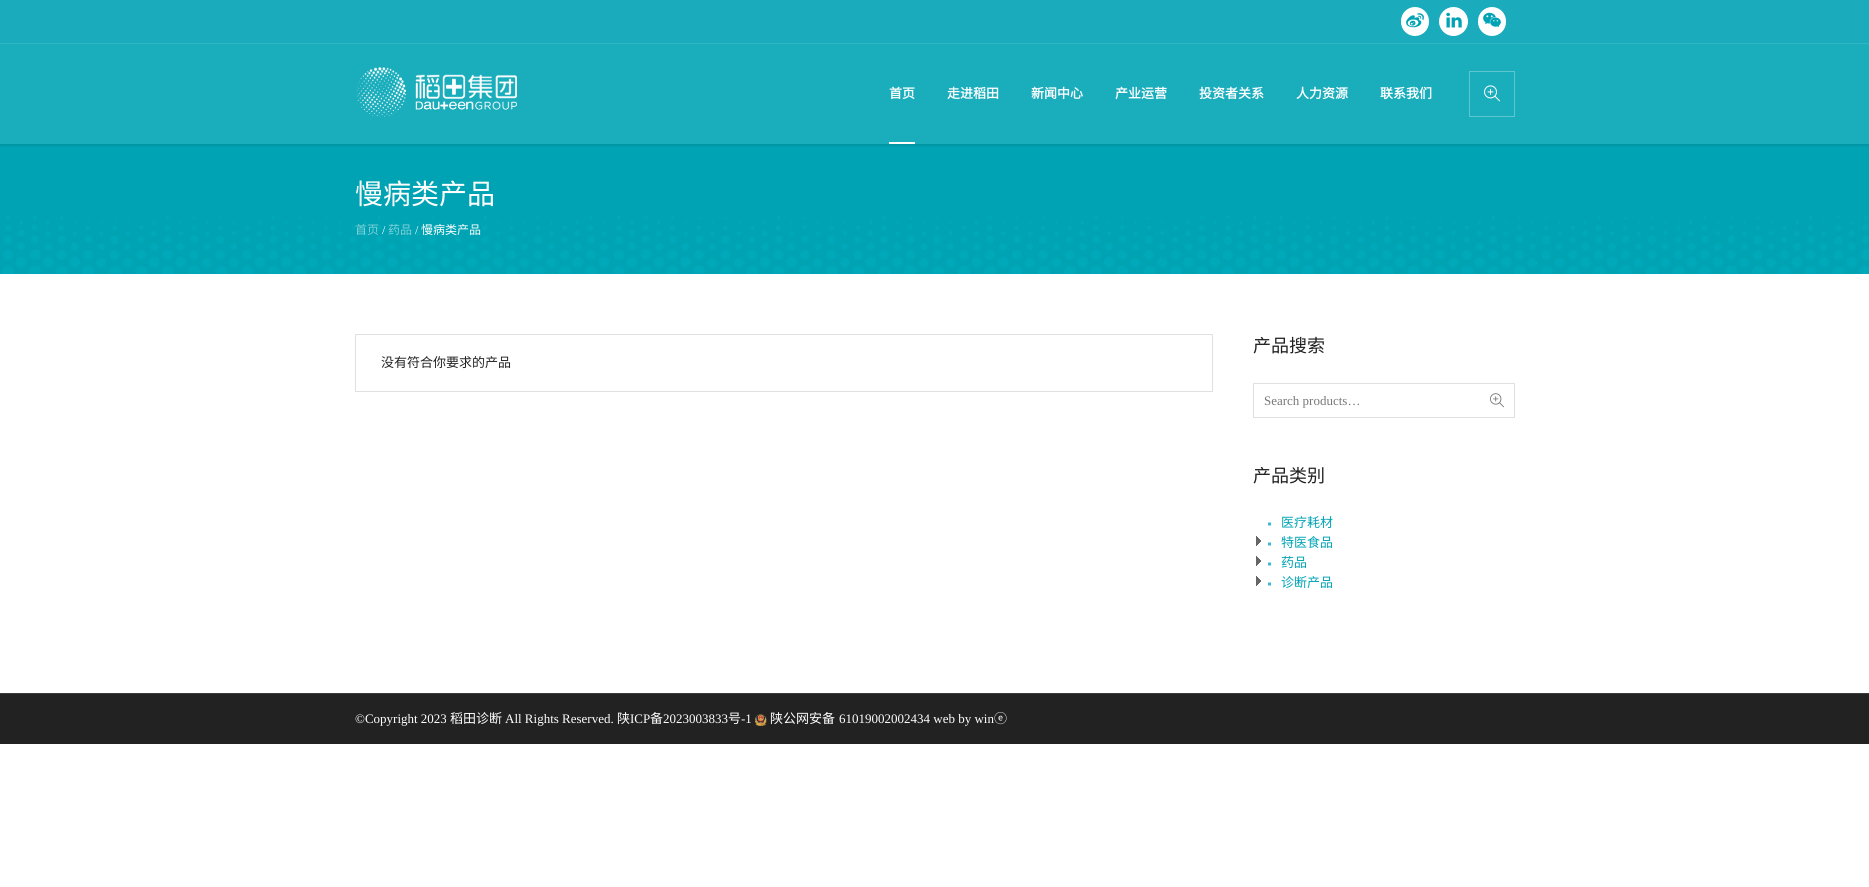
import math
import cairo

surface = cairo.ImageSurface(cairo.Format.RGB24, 1869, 887)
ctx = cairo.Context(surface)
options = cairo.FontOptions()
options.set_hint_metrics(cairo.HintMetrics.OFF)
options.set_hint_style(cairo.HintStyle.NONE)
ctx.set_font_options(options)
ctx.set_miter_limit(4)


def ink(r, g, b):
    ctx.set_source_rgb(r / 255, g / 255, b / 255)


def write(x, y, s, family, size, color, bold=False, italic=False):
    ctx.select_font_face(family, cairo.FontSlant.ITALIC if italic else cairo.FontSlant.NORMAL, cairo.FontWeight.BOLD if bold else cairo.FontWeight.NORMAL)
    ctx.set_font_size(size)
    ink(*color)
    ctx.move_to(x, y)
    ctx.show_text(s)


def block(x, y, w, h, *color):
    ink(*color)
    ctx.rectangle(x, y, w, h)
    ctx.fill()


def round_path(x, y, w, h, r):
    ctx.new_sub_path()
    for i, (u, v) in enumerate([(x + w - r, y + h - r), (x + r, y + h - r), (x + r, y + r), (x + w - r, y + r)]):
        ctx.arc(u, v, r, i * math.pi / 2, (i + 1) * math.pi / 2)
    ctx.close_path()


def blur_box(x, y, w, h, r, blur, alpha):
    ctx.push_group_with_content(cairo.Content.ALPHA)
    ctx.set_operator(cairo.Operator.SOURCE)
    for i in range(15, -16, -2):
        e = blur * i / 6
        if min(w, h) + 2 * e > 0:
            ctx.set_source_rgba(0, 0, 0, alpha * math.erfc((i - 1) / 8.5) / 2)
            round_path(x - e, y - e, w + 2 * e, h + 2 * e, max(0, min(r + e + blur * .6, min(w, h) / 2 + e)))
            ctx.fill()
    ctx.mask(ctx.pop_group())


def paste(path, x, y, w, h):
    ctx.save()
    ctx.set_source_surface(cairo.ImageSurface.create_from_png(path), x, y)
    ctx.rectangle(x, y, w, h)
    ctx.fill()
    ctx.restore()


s1 = dict(family="Noto Sans CJK SC", size=13, color=(255, 255, 255), bold=True)
s2 = dict(family="Noto Sans CJK SC", size=28, color=(255, 255, 255))
s3 = dict(family="Noto Sans CJK SC", size=12, color=(128, 209, 217))
s4 = dict(family="Liberation Serif", size=12, color=(255, 255, 255))
s5 = dict(family="Noto Sans CJK SC", size=12, color=(255, 255, 255))
s6 = dict(family="Noto Sans CJK SC", size=13, color=(34, 34, 34))
s7 = dict(family="Noto Sans CJK SC", size=18, color=(34, 34, 34))
s8 = dict(family="Liberation Serif", size=13, color=(120, 120, 120))
s9 = dict(family="Noto Sans CJK SC", size=13, color=(0, 163, 180))
s10 = dict(family="Liberation Serif", size=13, color=(255, 255, 255))
s11 = dict(family="Noto Sans CJK SC", size=13, color=(255, 255, 255))

ink(255, 255, 255)
ctx.paint()
block(0, 0, 1869, 43, 26, 172, 188)
block(0, 43, 1869, 1, 49, 180, 195)
ink(255, 255, 255)
round_path(1401, 7, 28, 29, 14)
ctx.fill()
paste("pic1.png", 1406, 13, 18, 15)
ctx.arc(1453.5, 21.5, 14.5, 0, 2 * math.pi)
ctx.fill()
paste("pic2.png", 1446, 12, 16, 16)
round_path(1478, 7, 28, 29, 14)
ctx.fill()
paste("pic3.png", 1483, 12, 18, 16)
block(0, 44, 1869, 100, 26, 173, 188)
block(0, 144, 1869, 130, 0, 163, 180)
ctx.save()
ctx.rectangle(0, 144, 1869, 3)
ctx.clip()
ink(0, 0, 0)
blur_box(0, 46, 1869, 100, 0, 1.5, 0.1)
ctx.restore()
paste("pic4.png", 356, 67, 161, 50)
write(889, 98, "首页", **s1)
write(947, 98, "走进稻田", **s1)
write(1031, 98, "新闻中心", **s1)
write(1115, 98, "产业运营", **s1)
write(1199, 98, "投资者关系", **s1)
write(1296, 98, "人力资源", **s1)
write(1380, 98, "联系我们", **s1)
block(889, 142, 26, 2, 255, 255, 255)
ctx.rectangle(1469.5, 71.5, 45, 45)
ink(95, 198, 208)
ctx.set_line_width(1)
ctx.stroke()
paste("pic5.png", 1484, 85, 16, 17)
paste("pic6.png", 2, 216, 1867, 58)
write(355, 204, "慢病类产品", **s2)
write(355, 234, "首页", **s3)
write(382, 234, "/", **s4)
write(388, 234, "药品", **s3)
write(415, 234, "/", **s4)
write(421, 234, "慢病类产品", **s5)
ctx.rectangle(355.5, 334.5, 857, 57)
ink(224, 224, 224)
ctx.stroke()
write(381, 367, "没有符合你要求的产品", **s6)
write(1253, 352, "产品搜索", **s7)
ctx.rectangle(1253.5, 383.5, 261, 34)
ink(224, 224, 224)
ctx.stroke()
write(1264, 405, "Search products…", **s8)
paste("pic7.png", 1490, 393, 14, 15)
write(1253, 482, "产品类别", **s7)
ink(62, 184, 215)
ctx.new_path()
ctx.move_to(1271, 522.5)
ctx.line_to(1271, 525.5)
ctx.line_to(1268, 525.5)
ctx.line_to(1268, 522.5)
ctx.close_path()
ctx.fill()
write(1281, 527, "医疗耗材", **s9)
paste("pic8.png", 1256, 536, 5, 10)
ink(62, 184, 215)
ctx.new_path()
ctx.move_to(1271, 542.5)
ctx.line_to(1271, 545.5)
ctx.line_to(1268, 545.5)
ctx.line_to(1268, 542.5)
ctx.close_path()
ctx.fill()
write(1281, 547, "特医食品", **s9)
paste("pic8.png", 1256, 556, 5, 10)
ink(62, 184, 215)
ctx.new_path()
ctx.move_to(1271, 562.5)
ctx.line_to(1271, 565.5)
ctx.line_to(1268, 565.5)
ctx.line_to(1268, 562.5)
ctx.close_path()
ctx.fill()
write(1281, 567, "药品", **s9)
paste("pic8.png", 1256, 576, 5, 10)
ink(62, 184, 215)
ctx.new_path()
ctx.move_to(1271, 582.5)
ctx.line_to(1271, 585.5)
ctx.line_to(1268, 585.5)
ctx.line_to(1268, 582.5)
ctx.close_path()
ctx.fill()
write(1281, 587, "诊断产品", **s9)
block(0, 694, 1869, 50, 34, 34, 34)
block(0, 693, 1869, 1, 61, 61, 61)
write(355, 723, "©Copyright 2023", **s10)
write(450, 723, "稻田诊断", **s11)
write(505, 723, "All Rights Reserved.", **s10)
write(617, 723, "陕", **s11)
write(630, 723, "ICP", **s10)
write(650, 723, "备", **s11)
write(663, 723, "2023003833", **s10)
write(728, 723, "号", **s11)
write(741, 723, "-1", **s10)
paste("pic9.png", 755, 714, 12, 12)
write(770, 723, "陕公网安备", **s11)
write(839, 723, "61019002002434 web by win", **s10)
write(994, 723, "ⓔ", **s11)
surface.write_to_png("screenshot.png")
